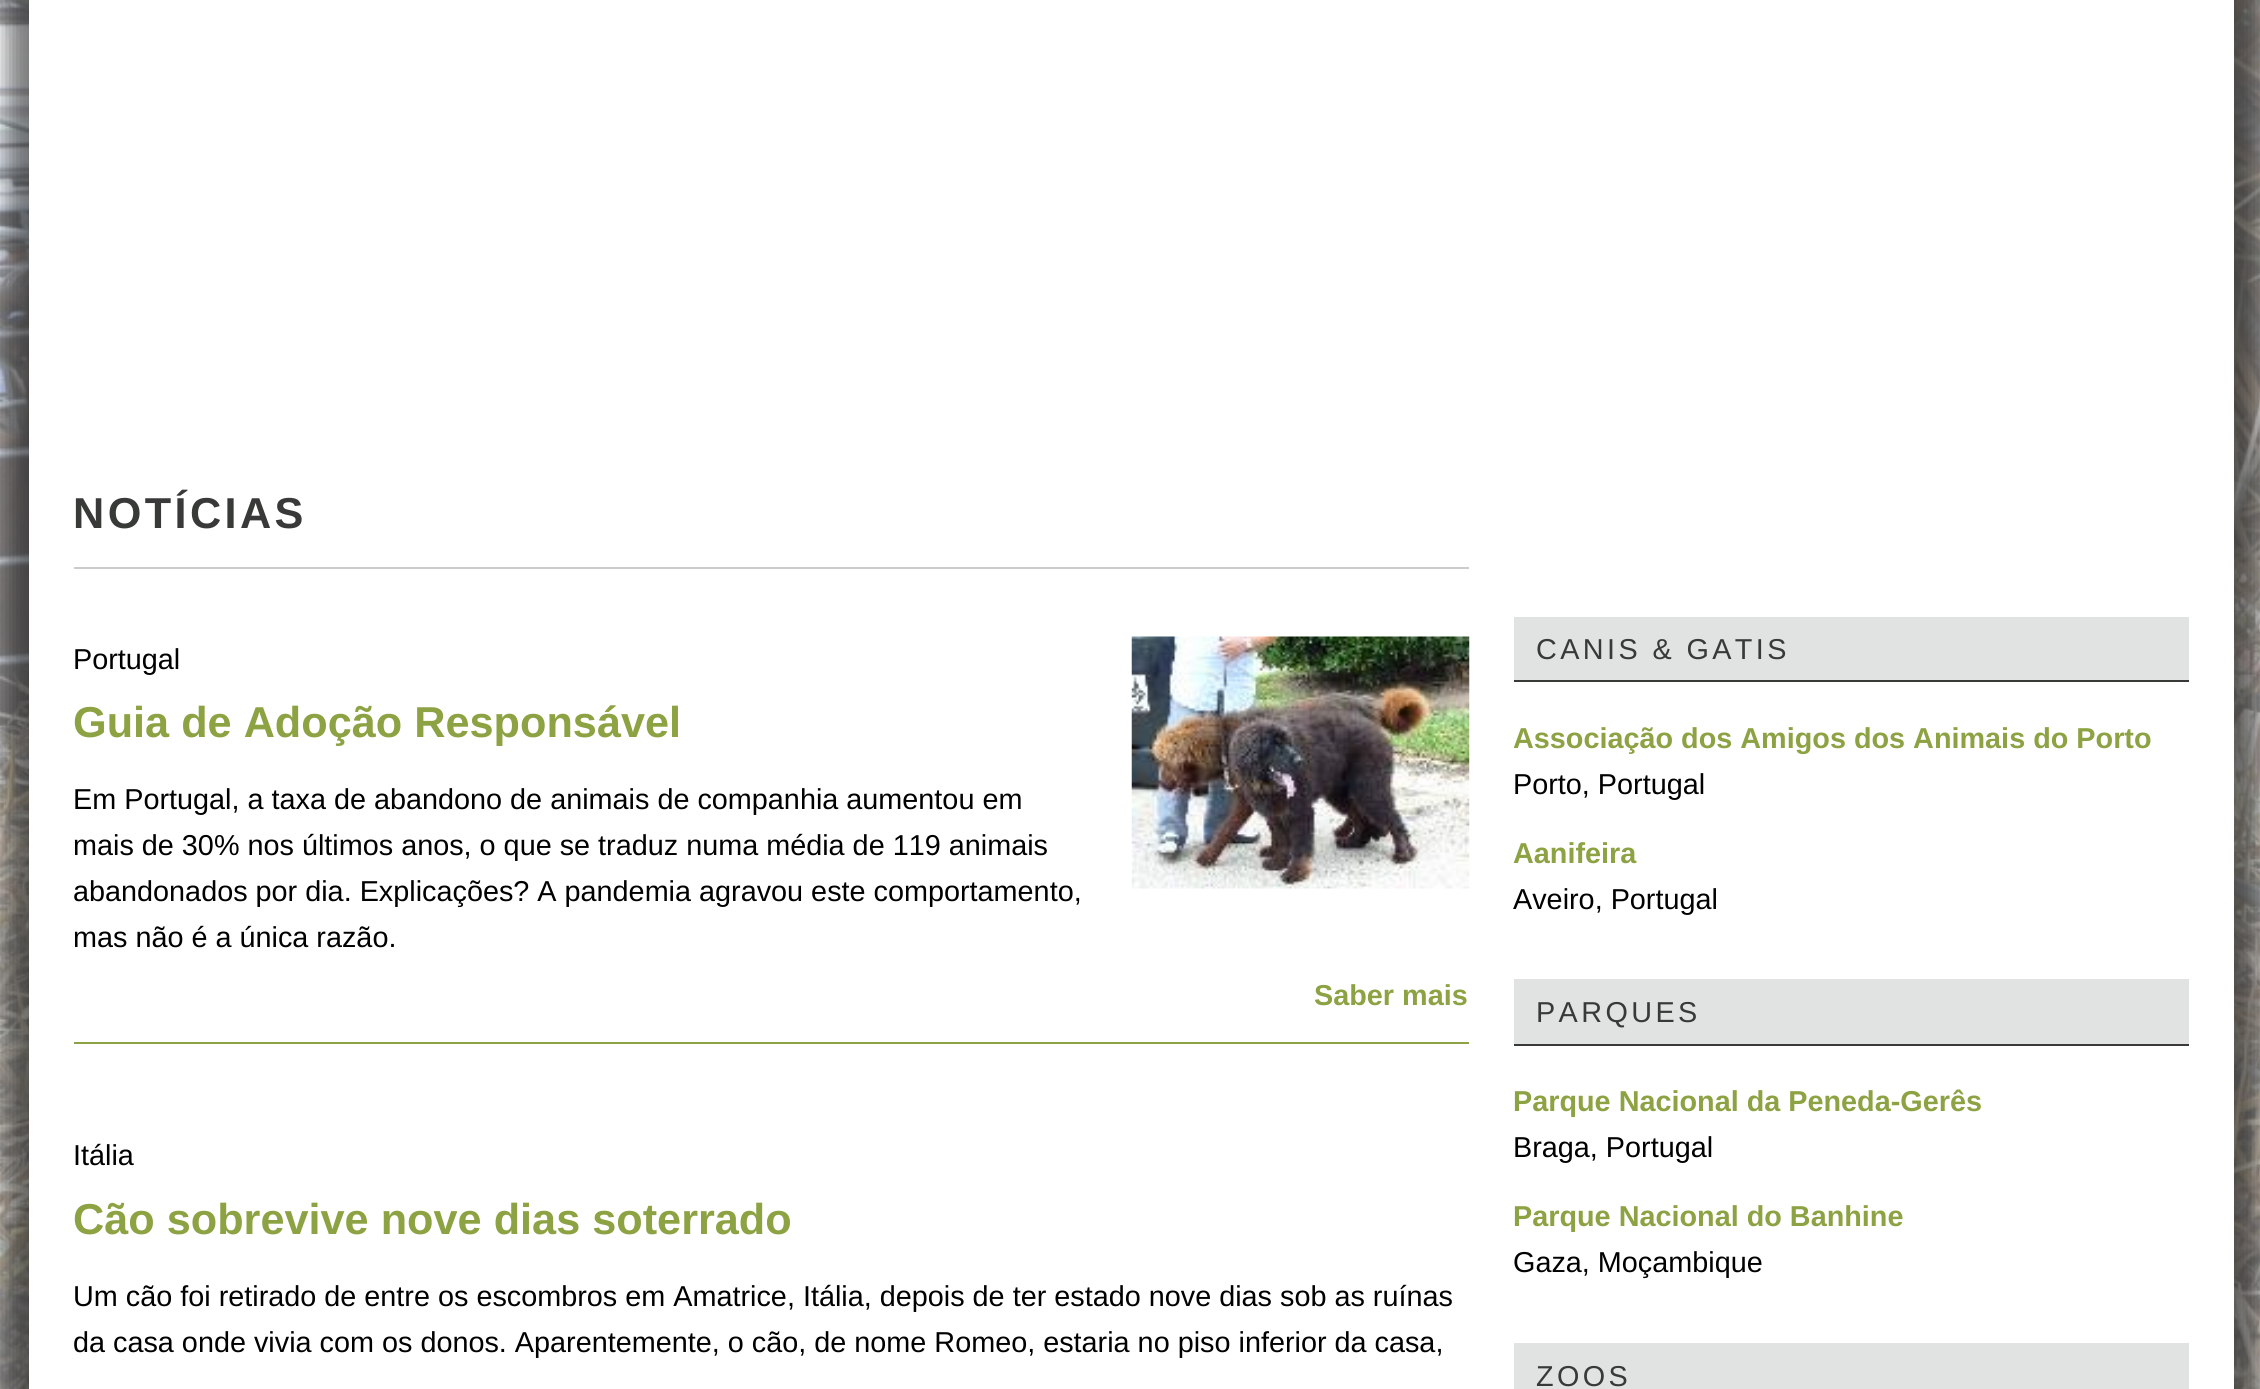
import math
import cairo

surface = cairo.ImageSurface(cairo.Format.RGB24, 2260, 1389)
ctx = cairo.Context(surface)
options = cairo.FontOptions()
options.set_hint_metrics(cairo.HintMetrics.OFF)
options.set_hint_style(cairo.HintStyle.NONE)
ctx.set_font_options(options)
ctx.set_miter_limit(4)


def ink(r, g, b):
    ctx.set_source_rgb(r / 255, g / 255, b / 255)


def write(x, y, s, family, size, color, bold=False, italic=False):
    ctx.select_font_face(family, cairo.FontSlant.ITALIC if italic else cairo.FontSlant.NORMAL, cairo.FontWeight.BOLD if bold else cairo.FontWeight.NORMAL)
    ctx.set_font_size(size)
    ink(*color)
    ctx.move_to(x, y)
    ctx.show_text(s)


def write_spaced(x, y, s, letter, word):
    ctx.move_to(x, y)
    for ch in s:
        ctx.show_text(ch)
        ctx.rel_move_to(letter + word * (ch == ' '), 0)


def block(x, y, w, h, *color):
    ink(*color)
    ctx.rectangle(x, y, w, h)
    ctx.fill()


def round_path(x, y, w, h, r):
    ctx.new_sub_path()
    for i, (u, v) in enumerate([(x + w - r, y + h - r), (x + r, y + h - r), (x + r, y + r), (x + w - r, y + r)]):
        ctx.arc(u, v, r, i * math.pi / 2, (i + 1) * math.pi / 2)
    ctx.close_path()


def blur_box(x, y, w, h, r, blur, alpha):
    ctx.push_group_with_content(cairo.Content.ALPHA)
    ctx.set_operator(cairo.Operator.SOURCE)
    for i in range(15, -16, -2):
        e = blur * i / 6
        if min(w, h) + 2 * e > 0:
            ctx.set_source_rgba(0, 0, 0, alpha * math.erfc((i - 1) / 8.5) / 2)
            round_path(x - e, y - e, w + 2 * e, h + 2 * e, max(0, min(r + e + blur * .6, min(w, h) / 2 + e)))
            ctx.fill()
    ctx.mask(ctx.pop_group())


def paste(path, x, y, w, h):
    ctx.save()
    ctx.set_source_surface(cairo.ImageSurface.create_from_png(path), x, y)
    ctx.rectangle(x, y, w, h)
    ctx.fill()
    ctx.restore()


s1 = dict(family="Liberation Sans", size=28.8, color=(0, 0, 0))
s2 = dict(family="Liberation Sans", size=43.25, color=(141, 162, 66), bold=True)
s3 = dict(family="Liberation Sans", size=28.8, color=(141, 162, 66), bold=True)

ink(255, 255, 255)
ctx.paint()
paste("pic1.png", 0, 0, 2260, 1389)
ink(0, 0, 0)
blur_box(7, -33, 2205, 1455, 0, 11, 0.5)
blur_box(52, -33, 2205, 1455, 0, 11, 0.5)
block(29, 0, 2205, 1389, 255, 255, 255)
block(74, 567, 1395, 2, 204, 204, 204)
ctx.select_font_face("Liberation Sans", cairo.FontSlant.NORMAL, cairo.FontWeight.BOLD)
ctx.set_font_size(43.25)
ink(55, 58, 54)
write_spaced(73, 528, "NOTÍCIAS", 3.4, 0)
block(74, 1042, 1395, 2, 141, 162, 66)
write(73, 669, "Portugal", **s1)
paste("pic2.png", 1131, 636, 339, 253)
write(73, 737, "Guia de Adoção Responsável", **s2)
write(73, 809, "Em Portugal, a taxa de abandono de animais de companhia aumentou em", **s1)
write(73, 855, "mais de 30% nos últimos anos, o que se traduz numa média de 119 animais", **s1)
write(73, 901, "abandonados por dia. Explicações? A pandemia agravou este comportamento,", **s1)
write(73, 947, "mas não é a única razão.", **s1)
write(1314, 1005, "Saber mais", **s3)
write(73, 1165, "Itália", **s1)
write(73, 1234, "Cão sobrevive nove dias soterrado", **s2)
write(73, 1306, "Um cão foi retirado de entre os escombros em Amatrice, Itália, depois de ter estado nove dias sob as ruínas", **s1)
write(73, 1352, "da casa onde vivia com os donos. Aparentemente, o cão, de nome Romeo, estaria no piso inferior da casa,", **s1)
block(1514, 617, 675, 63, 225, 226, 226)
block(1514, 680, 675, 2, 55, 58, 54)
write_spaced(1536, 659, "CANIS & GATIS", 3.4, 0)
write(1513, 748, "Associação dos Amigos dos Animais do Porto", **s3)
write(1513, 794, "Porto, Portugal", **s1)
write(1513, 863, "Aanifeira", **s3)
write(1513, 909, "Aveiro, Portugal", **s1)
block(1514, 979, 675, 65, 225, 226, 226)
block(1514, 1044, 675, 2, 55, 58, 54)
write_spaced(1536, 1022, "PARQUES", 3.4, 0)
write(1513, 1111, "Parque Nacional da Peneda-Gerês", **s3)
write(1513, 1157, "Braga, Portugal", **s1)
write(1513, 1226, "Parque Nacional do Banhine", **s3)
write(1513, 1272, "Gaza, Moçambique", **s1)
block(1514, 1343, 675, 46, 225, 226, 226)
ink(55, 58, 54)
write_spaced(1536, 1386, "ZOOS", 3.4, 0)
surface.write_to_png("screenshot.png")
